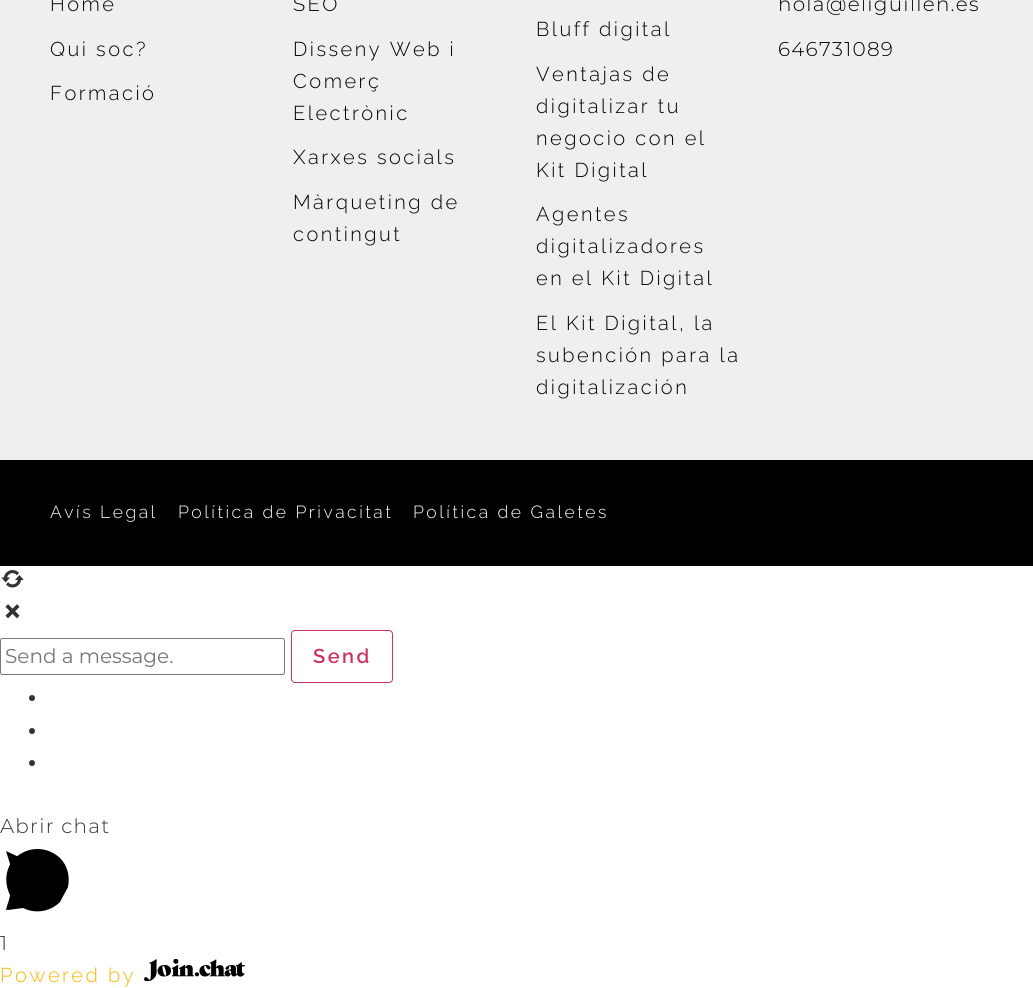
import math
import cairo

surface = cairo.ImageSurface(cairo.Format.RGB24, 1033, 988)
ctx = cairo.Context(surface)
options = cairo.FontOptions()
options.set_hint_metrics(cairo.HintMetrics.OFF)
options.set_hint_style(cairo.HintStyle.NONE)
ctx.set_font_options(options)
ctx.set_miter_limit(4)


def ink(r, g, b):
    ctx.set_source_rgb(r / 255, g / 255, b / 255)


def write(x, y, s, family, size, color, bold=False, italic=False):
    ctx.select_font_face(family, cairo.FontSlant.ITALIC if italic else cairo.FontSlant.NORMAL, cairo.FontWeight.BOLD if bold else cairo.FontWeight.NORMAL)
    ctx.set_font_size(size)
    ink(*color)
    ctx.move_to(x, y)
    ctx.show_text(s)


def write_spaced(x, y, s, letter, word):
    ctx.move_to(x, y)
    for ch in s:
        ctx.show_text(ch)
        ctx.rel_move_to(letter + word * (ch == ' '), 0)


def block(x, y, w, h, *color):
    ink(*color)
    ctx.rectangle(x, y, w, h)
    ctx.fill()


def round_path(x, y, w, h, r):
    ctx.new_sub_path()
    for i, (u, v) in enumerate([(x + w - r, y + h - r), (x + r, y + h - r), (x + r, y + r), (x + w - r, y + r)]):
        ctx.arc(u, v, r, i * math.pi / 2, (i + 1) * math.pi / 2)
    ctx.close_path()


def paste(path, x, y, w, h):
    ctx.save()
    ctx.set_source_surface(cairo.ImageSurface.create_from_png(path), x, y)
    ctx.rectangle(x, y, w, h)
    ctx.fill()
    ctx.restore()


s1 = dict(family="Montserrat", size=20, color=(117, 117, 117))

ink(255, 255, 255)
ctx.paint()
block(0, 0, 1033, 460, 239, 239, 239)
ctx.select_font_face("Raleway Light")
ctx.set_font_size(20)
ink(0, 0, 0)
write_spaced(50, 11, "Home", 2.5, 0)
write_spaced(50, 56, "Qui soc?", 2.5, 0)
write_spaced(50, 100, "Formació", 2.5, 0)
write_spaced(293, 11, "SEO", 2.5, 0)
write_spaced(293, 56, "Disseny Web i", 2.5, 0)
write_spaced(293, 88, "Comerç", 2.5, 0)
write_spaced(293, 120, "Electrònic", 2.5, 0)
write_spaced(293, 164, "Xarxes socials", 2.5, 0)
write_spaced(293, 209, "Màrqueting de", 2.5, 0)
write_spaced(293, 241, "contingut", 2.5, 0)
write_spaced(536, 36, "Bluff digital", 2.5, 0)
write_spaced(536, 81, "Ventajas de", 2.5, 0)
write_spaced(536, 113, "digitalizar tu", 2.5, 0)
write_spaced(536, 145, "negocio con el", 2.5, 0)
write_spaced(536, 177, "Kit Digital", 2.5, 0)
write_spaced(536, 221, "Agentes", 2.5, 0)
write_spaced(536, 253, "digitalizadores", 2.5, 0)
write_spaced(536, 285, "en el Kit Digital", 2.5, 0)
write_spaced(536, 330, "El Kit Digital, la", 2.5, 0)
write_spaced(536, 362, "subención para la", 2.5, 0)
write_spaced(536, 394, "digitalización", 2.5, 0)
ctx.select_font_face("Montserrat Light")
write_spaced(778, 11, "hola@eliguillen.es", 1.25, 0)
write_spaced(778, 56, "646731089", 1.25, 0)
block(0, 460, 1033, 106, 0, 0, 0)
ctx.select_font_face("Raleway Light")
ctx.set_font_size(17.5)
ink(255, 255, 255)
write_spaced(50, 518, "Avís Legal", 2.5, 0)
write_spaced(178, 518, "Política de Privacitat", 2.5, 0)
write_spaced(413, 518, "Política de Galetes", 2.5, 0)
paste("pic1.png", 1, 570, 23, 18)
paste("pic2.png", 5, 604, 15, 15)
round_path(0.5, 638.5, 284, 36, 2)
ink(118, 118, 118)
ctx.set_line_width(1)
ctx.stroke()
write(5, 663, "Send a message.", **s1)
round_path(291.5, 630.5, 101, 52, 3.5)
ink(204, 51, 102)
ctx.stroke()
ctx.select_font_face("Raleway SemiBold")
write_spaced(313, 663, "Send", 2.5, 0)
ink(51, 51, 51)
ctx.new_path()
ctx.arc(32, 698, 3, 0, 2 * math.pi)
ctx.fill()
ctx.arc(32, 731, 3, 0, 2 * math.pi)
ctx.fill()
ctx.arc(32, 763, 3, 0, 2 * math.pi)
ctx.fill()
ctx.select_font_face("Montserrat Light")
write_spaced(0, 833, "Abrir chat", 1.25, 0)
ink(0, 0, 0)
ctx.new_path()
ctx.move_to(32, 880)
ctx.line_to(15, 880)
ctx.line_to(6, 851)
ctx.line_to(68, 880)
ctx.line_to(17, 905)
ctx.curve_to(6, 910, 5, 913, 7, 906)
ctx.line_to(12, 891)
ctx.fill()
ctx.new_path()
ctx.move_to(60, 902)
ctx.curve_to(50, 912, 35, 914, 23, 908)
ctx.line_to(8, 910)
ctx.line_to(10, 895)
ctx.curve_to(4, 883, 5, 868, 15, 858)
ctx.curve_to(28, 846, 47, 846, 60, 858)
ctx.curve_to(68, 866, 70, 877, 68, 887)
ctx.fill()
ink(51, 51, 51)
write_spaced(0, 950, "1", 1.25, 0)
ctx.select_font_face("Raleway Light")
ink(252, 181, 0)
write_spaced(0, 982, "Powered by", 2.5, 0)
paste("pic3.png", 144, 959, 101, 22)
surface.write_to_png("screenshot.png")
